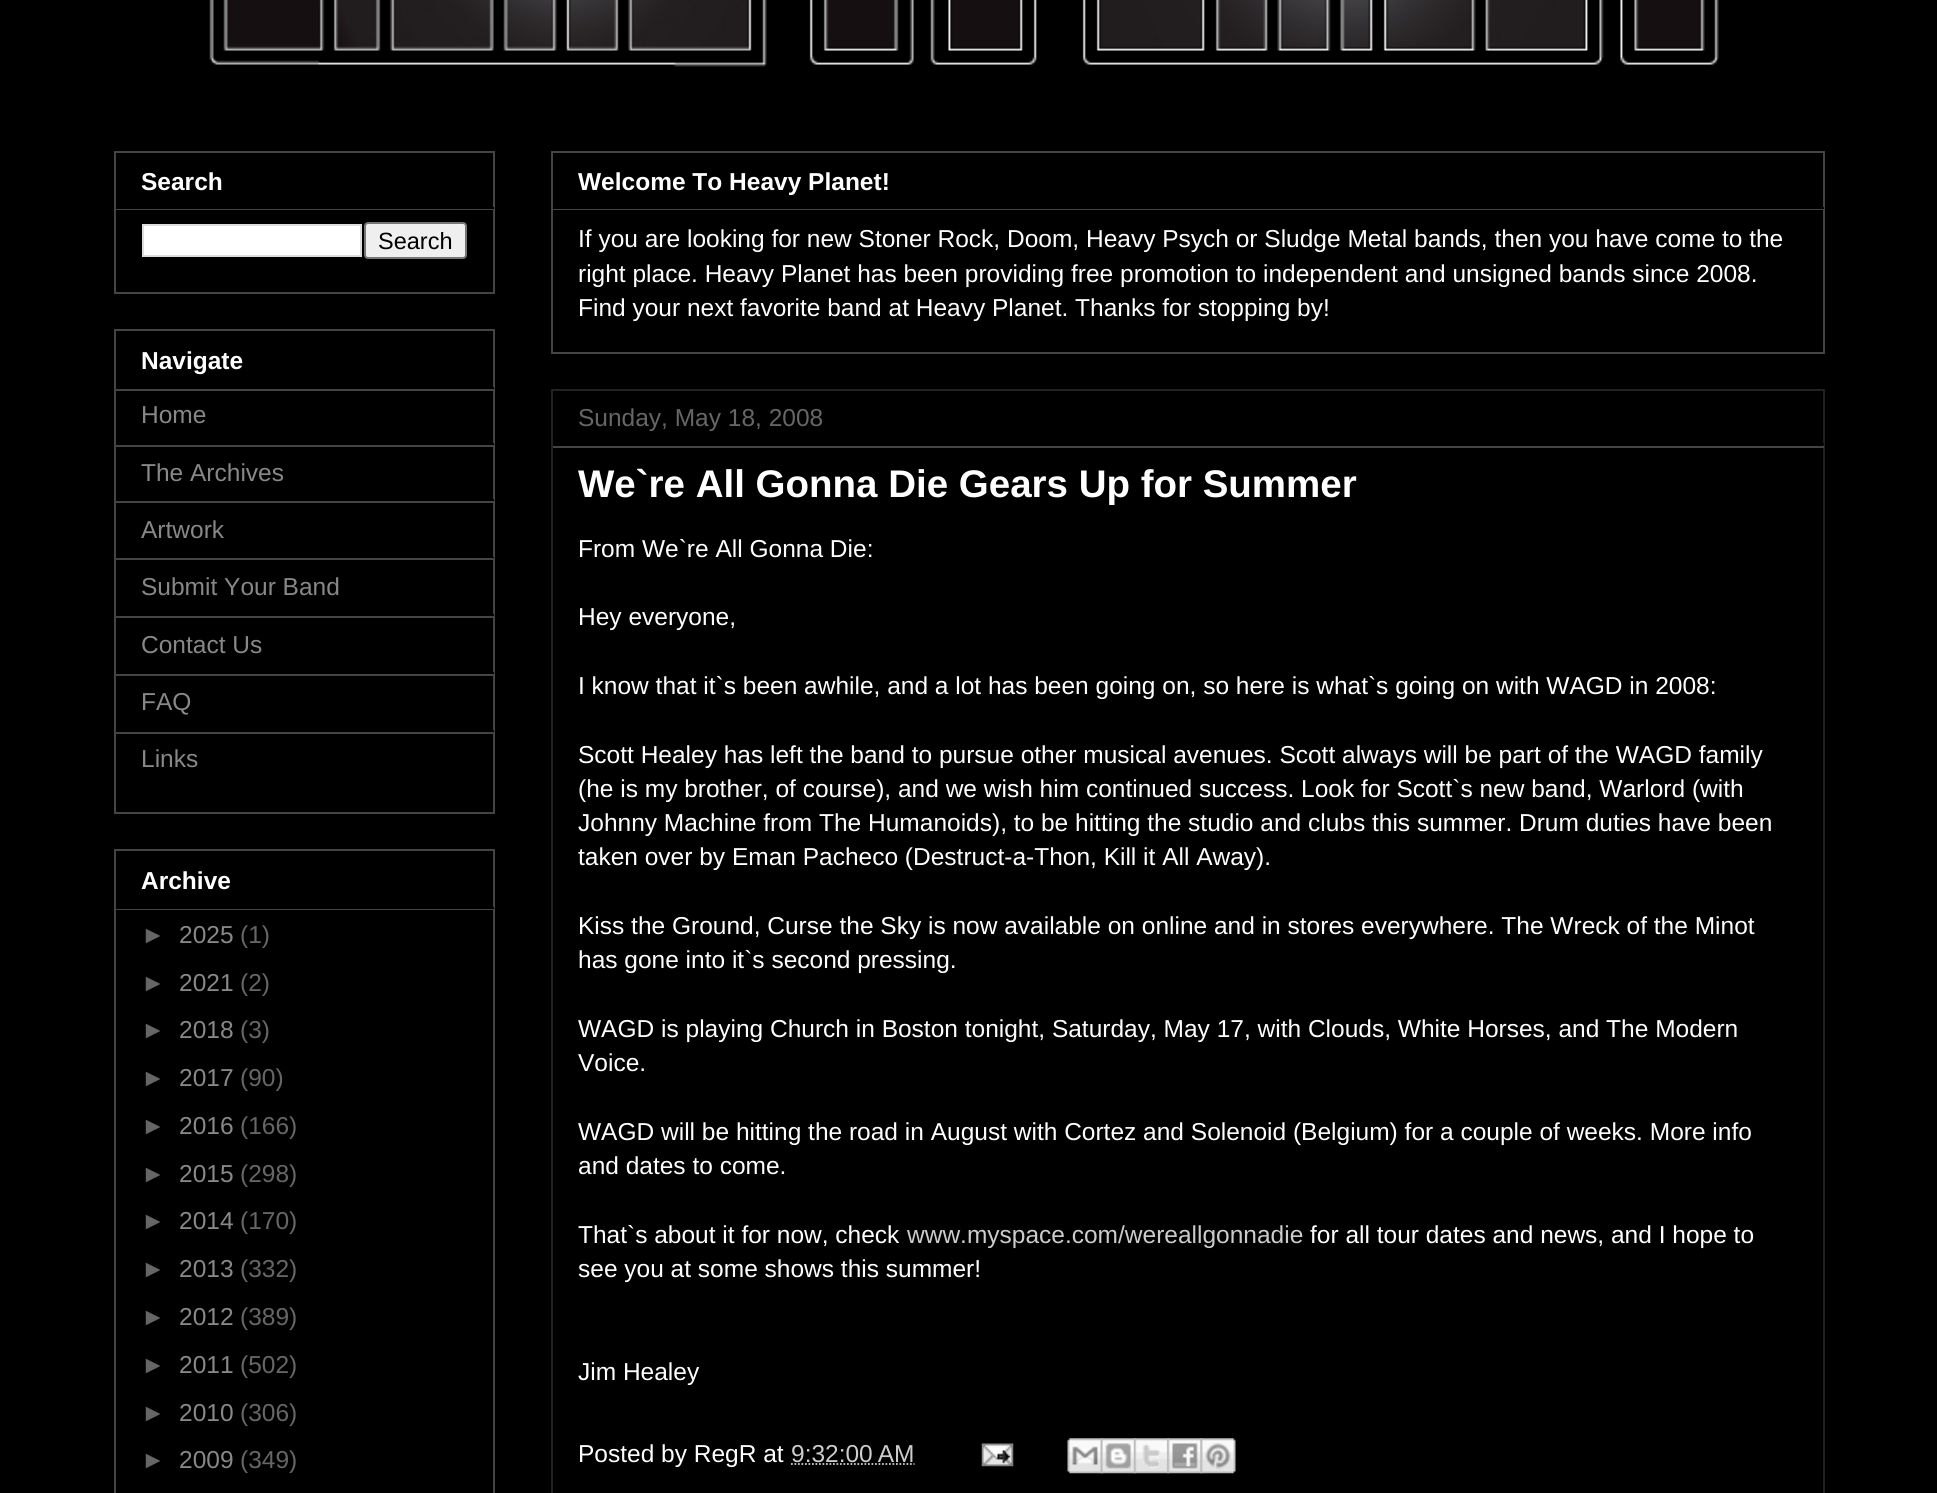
import math
import cairo

surface = cairo.ImageSurface(cairo.Format.RGB24, 1937, 1493)
ctx = cairo.Context(surface)
options = cairo.FontOptions()
options.set_hint_metrics(cairo.HintMetrics.OFF)
options.set_hint_style(cairo.HintStyle.NONE)
ctx.set_font_options(options)
ctx.set_miter_limit(4)


def ink(r, g, b):
    ctx.set_source_rgb(r / 255, g / 255, b / 255)


def write(x, y, s, family, size, color, bold=False, italic=False):
    ctx.select_font_face(family, cairo.FontSlant.ITALIC if italic else cairo.FontSlant.NORMAL, cairo.FontWeight.BOLD if bold else cairo.FontWeight.NORMAL)
    ctx.set_font_size(size)
    ink(*color)
    ctx.move_to(x, y)
    ctx.show_text(s)


def block(x, y, w, h, *color):
    ink(*color)
    ctx.rectangle(x, y, w, h)
    ctx.fill()


def round_path(x, y, w, h, r):
    ctx.new_sub_path()
    for i, (u, v) in enumerate([(x + w - r, y + h - r), (x + r, y + h - r), (x + r, y + r), (x + w - r, y + r)]):
        ctx.arc(u, v, r, i * math.pi / 2, (i + 1) * math.pi / 2)
    ctx.close_path()


def paste(path, x, y, w, h):
    ctx.save()
    ctx.set_source_surface(cairo.ImageSurface.create_from_png(path), x, y)
    ctx.rectangle(x, y, w, h)
    ctx.fill()
    ctx.restore()


s1 = dict(family="Liberation Sans", size=24.5, color=(255, 255, 255), bold=True)
s2 = dict(family="Liberation Sans", size=23.5, color=(0, 0, 0))
s3 = dict(family="Liberation Sans", size=24.5, color=(136, 136, 136))
s4 = dict(family="Liberation Sans", size=24.5, color=(102, 102, 102))
s5 = dict(family="Liberation Sans", size=24.5, color=(255, 255, 255))
s6 = dict(family="Liberation Sans", size=38.5, color=(255, 255, 255), bold=True)
s7 = dict(family="Liberation Sans", size=24.5, color=(204, 204, 204))

ink(0, 0, 0)
ctx.paint()
paste("pic1.png", 209, 0, 1510, 67)
ctx.rectangle(115, 152, 379, 141)
ink(68, 68, 68)
ctx.stroke()
block(493, 207, 1, 2, 0, 0, 0)
write(141, 190, "Search", **s1)
block(116, 209, 378, 1, 68, 68, 68)
ink(255, 255, 255)
ctx.rectangle(143, 225, 218, 31)
ctx.fill_preserve()
ink(221, 221, 221)
ctx.stroke()
ink(239, 239, 239)
round_path(365, 223, 101, 35, 3)
ctx.fill_preserve()
ink(118, 118, 118)
ctx.stroke()
write(378, 249, "Search", **s2)
ctx.rectangle(115, 330, 379, 483)
ink(68, 68, 68)
ctx.stroke()
block(493, 387, 1, 2, 0, 0, 0)
write(141, 369, "Navigate", **s1)
block(116, 389, 378, 2, 68, 68, 68)
block(493, 443, 1, 2, 0, 0, 0)
write(141, 423, "Home", **s3)
block(116, 445, 378, 2, 68, 68, 68)
block(493, 499, 1, 2, 0, 0, 0)
write(141, 481, "The Archives", **s3)
block(116, 501, 378, 2, 68, 68, 68)
block(493, 557, 1, 1, 0, 0, 0)
write(141, 538, "Artwork", **s3)
block(116, 558, 378, 2, 68, 68, 68)
block(493, 614, 1, 2, 0, 0, 0)
write(141, 595, "Submit Your Band", **s3)
block(116, 616, 378, 2, 68, 68, 68)
block(493, 672, 1, 2, 0, 0, 0)
write(141, 653, "Contact Us", **s3)
block(116, 674, 378, 2, 68, 68, 68)
block(493, 730, 1, 2, 0, 0, 0)
write(141, 710, "FAQ", **s3)
block(116, 732, 378, 2, 68, 68, 68)
write(141, 767, "Links", **s3)
ctx.rectangle(115, 850, 379, 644)
ink(68, 68, 68)
ctx.stroke()
block(493, 907, 1, 2, 0, 0, 0)
write(141, 889, "Archive", **s1)
block(116, 909, 378, 1, 68, 68, 68)
write(141, 943, "►", **s4)
write(179, 943, "2025", **s3)
write(240, 943, "(1)", **s4)
write(141, 991, "►", **s4)
write(179, 991, "2021", **s3)
write(240, 991, "(2)", **s4)
write(141, 1038, "►", **s4)
write(179, 1038, "2018", **s3)
write(240, 1038, "(3)", **s4)
write(141, 1086, "►", **s4)
write(179, 1086, "2017", **s3)
write(240, 1086, "(90)", **s4)
write(141, 1134, "►", **s4)
write(179, 1134, "2016", **s3)
write(240, 1134, "(166)", **s4)
write(141, 1182, "►", **s4)
write(179, 1182, "2015", **s3)
write(240, 1182, "(298)", **s4)
write(141, 1229, "►", **s4)
write(179, 1229, "2014", **s3)
write(240, 1229, "(170)", **s4)
write(141, 1277, "►", **s4)
write(179, 1277, "2013", **s3)
write(240, 1277, "(332)", **s4)
write(141, 1325, "►", **s4)
write(179, 1325, "2012", **s3)
write(240, 1325, "(389)", **s4)
write(141, 1373, "►", **s4)
write(179, 1373, "2011", **s3)
write(240, 1373, "(502)", **s4)
write(141, 1421, "►", **s4)
write(179, 1421, "2010", **s3)
write(240, 1421, "(306)", **s4)
write(141, 1468, "►", **s4)
write(179, 1468, "2009", **s3)
write(240, 1468, "(349)", **s4)
ctx.rectangle(552, 152, 1272, 201)
ink(68, 68, 68)
ctx.stroke()
block(1823, 207, 1, 2, 0, 0, 0)
write(578, 190, "Welcome To Heavy Planet!", **s1)
block(553, 209, 1271, 1, 68, 68, 68)
write(578, 247, "If you are looking for new Stoner Rock, Doom, Heavy Psych or Sludge Metal bands, then you have come to the", **s5)
write(578, 282, "right place. Heavy Planet has been providing free promotion to independent and unsigned bands since 2008.", **s5)
write(578, 316, "Find your next favorite band at Heavy Planet. Thanks for stopping by!", **s5)
ctx.rectangle(552, 390, 1272, 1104)
ink(34, 34, 34)
ctx.stroke()
block(1823, 443, 1, 2, 0, 0, 0)
write(578, 426, "Sunday, May 18, 2008", **s4)
block(553, 446, 1271, 2, 68, 68, 68)
write(578, 497, "We`re All Gonna Die Gears Up for Summer", **s6)
write(578, 557, "From We`re All Gonna Die:", **s5)
write(578, 625, "Hey everyone,", **s5)
write(578, 694, "I know that it`s been awhile, and a lot has been going on, so here is what`s going on with WAGD in 2008:", **s5)
write(578, 763, "Scott Healey has left the band to pursue other musical avenues. Scott always will be part of the WAGD family", **s5)
write(578, 797, "(he is my brother, of course), and we wish him continued success. Look for Scott`s new band, Warlord (with", **s5)
write(578, 831, "Johnny Machine from The Humanoids), to be hitting the studio and clubs this summer. Drum duties have been", **s5)
write(578, 865, "taken over by Eman Pacheco (Destruct-a-Thon, Kill it All Away).", **s5)
write(578, 934, "Kiss the Ground, Curse the Sky is now available on online and in stores everywhere. The Wreck of the Minot", **s5)
write(578, 968, "has gone into it`s second pressing.", **s5)
write(578, 1037, "WAGD is playing Church in Boston tonight, Saturday, May 17, with Clouds, White Horses, and The Modern", **s5)
write(578, 1071, "Voice.", **s5)
write(578, 1140, "WAGD will be hitting the road in August with Cortez and Solenoid (Belgium) for a couple of weeks. More info", **s5)
write(578, 1174, "and dates to come.", **s5)
write(578, 1243, "That`s about it for now, check", **s5)
write(907, 1243, "www.myspace.com/wereallgonnadie", **s7)
write(1310, 1243, "for all tour dates and news, and I hope to", **s5)
write(578, 1277, "see you at some shows this summer!", **s5)
write(578, 1380, "Jim Healey", **s5)
write(578, 1462, "Posted by RegR at", **s5)
write(791, 1462, "9:32:00 AM", **s7)
ctx.new_path()
ctx.move_to(791, 1464)
ctx.line_to(914.5, 1464)
ctx.set_line_width(1.8)
ctx.set_dash([1.75, 1.75])
ctx.stroke()
paste("pic2.png", 981, 1443, 33, 24)
paste("pic3.png", 1067, 1438, 36, 36)
paste("pic4.png", 1100, 1438, 36, 36)
paste("pic5.png", 1134, 1438, 35, 36)
paste("pic6.png", 1167, 1438, 36, 36)
paste("pic7.png", 1200, 1438, 36, 36)
surface.write_to_png("screenshot.png")
